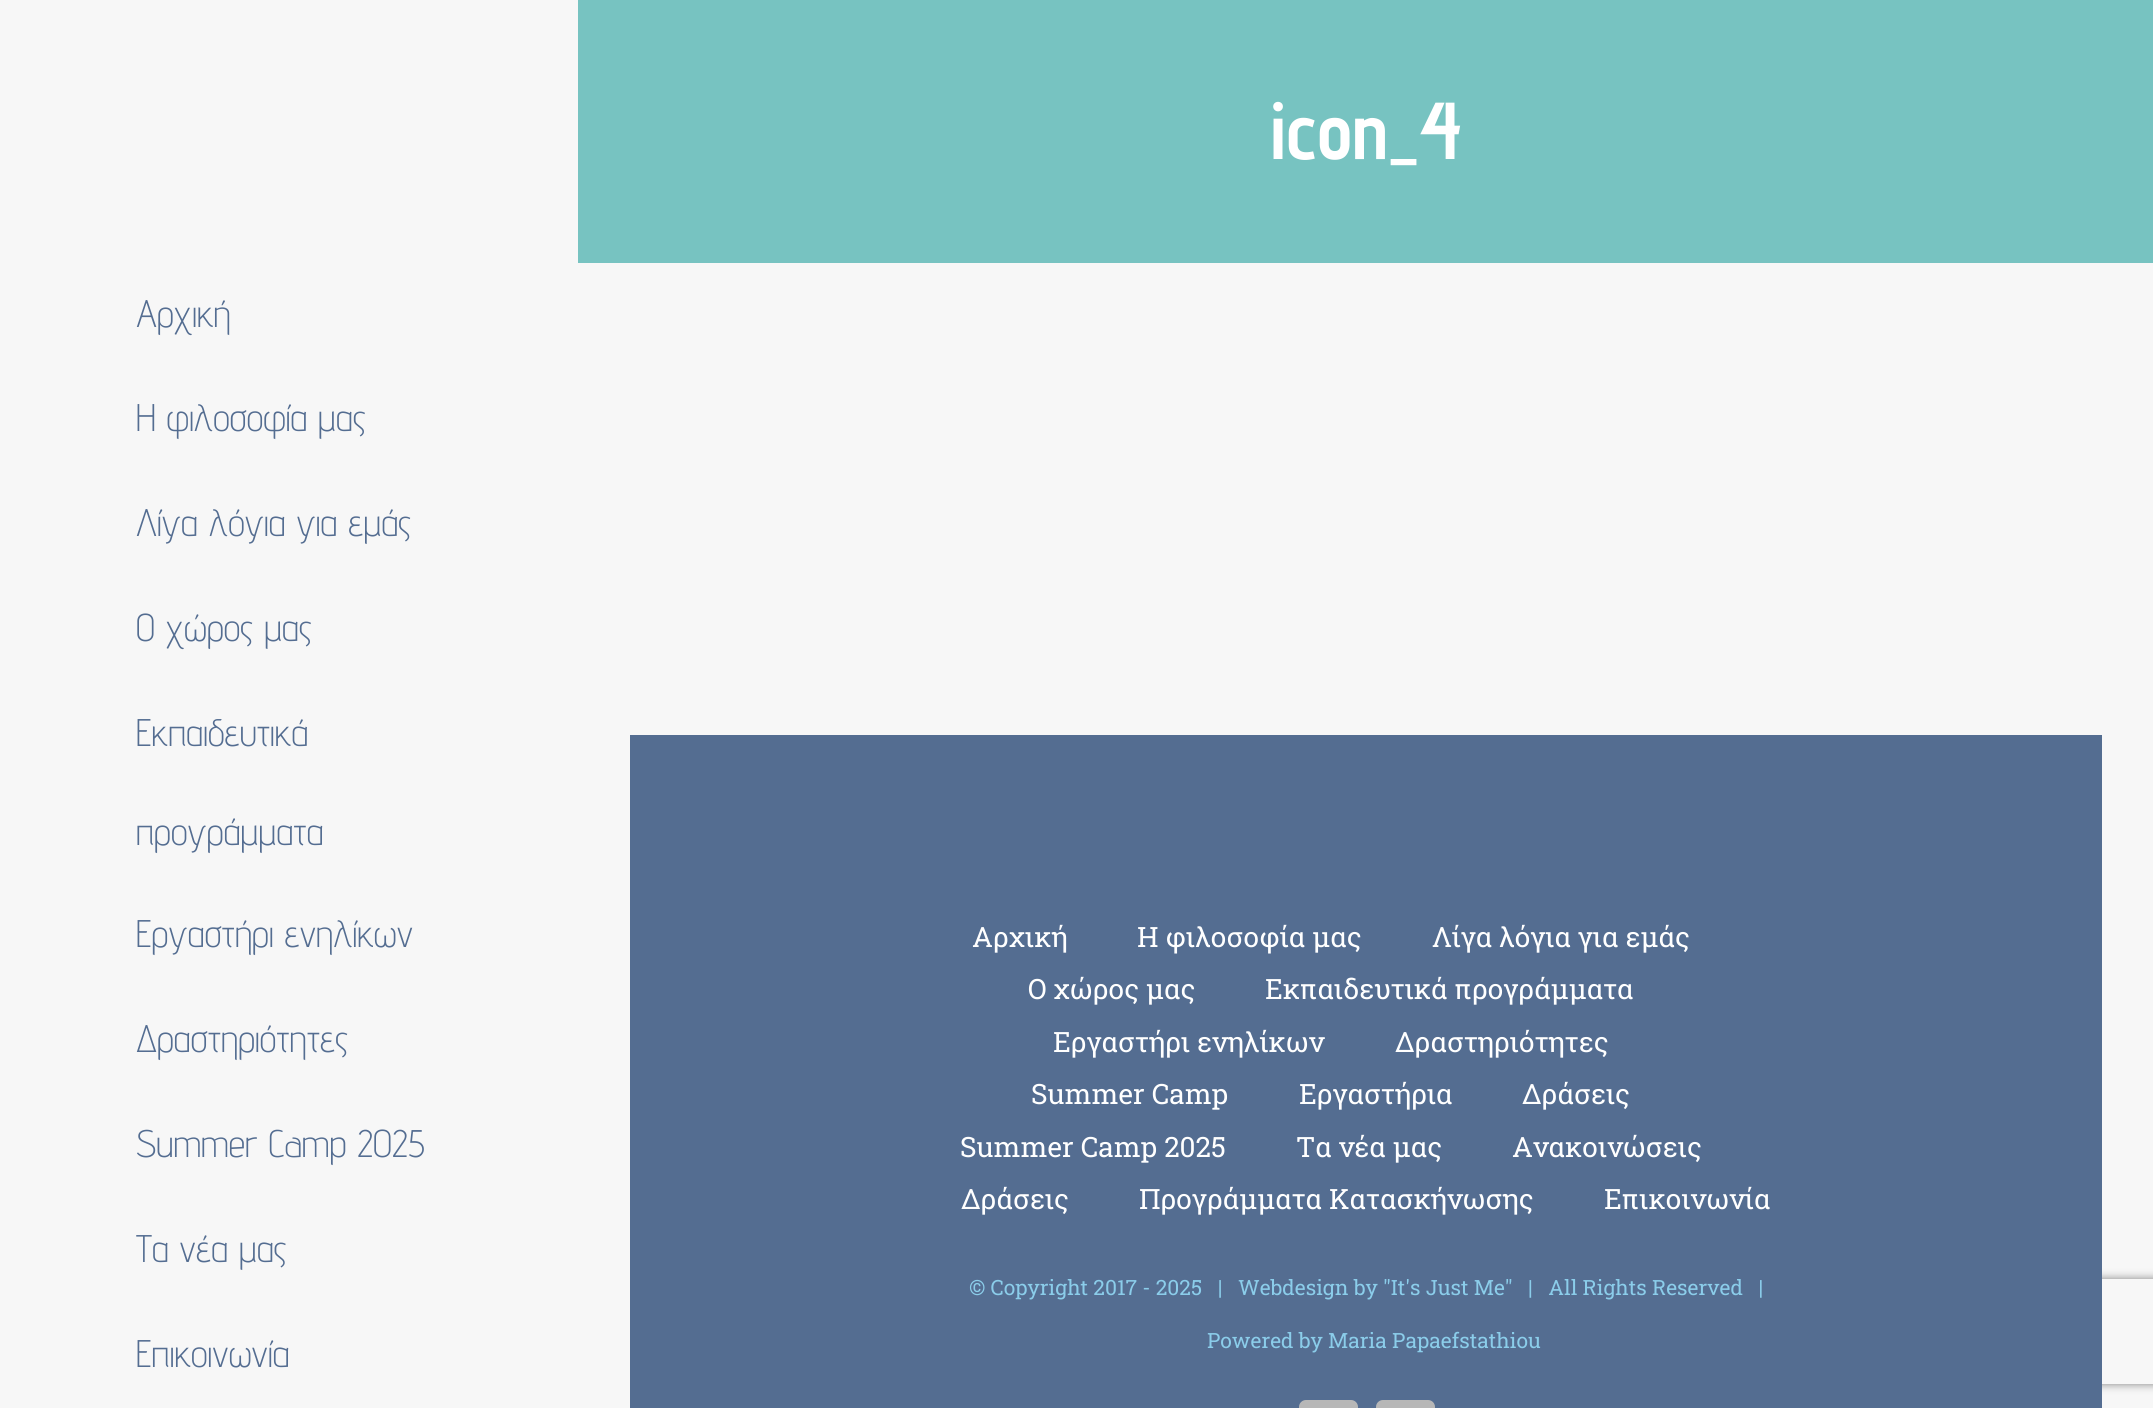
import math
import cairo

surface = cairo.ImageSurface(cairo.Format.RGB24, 2153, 1408)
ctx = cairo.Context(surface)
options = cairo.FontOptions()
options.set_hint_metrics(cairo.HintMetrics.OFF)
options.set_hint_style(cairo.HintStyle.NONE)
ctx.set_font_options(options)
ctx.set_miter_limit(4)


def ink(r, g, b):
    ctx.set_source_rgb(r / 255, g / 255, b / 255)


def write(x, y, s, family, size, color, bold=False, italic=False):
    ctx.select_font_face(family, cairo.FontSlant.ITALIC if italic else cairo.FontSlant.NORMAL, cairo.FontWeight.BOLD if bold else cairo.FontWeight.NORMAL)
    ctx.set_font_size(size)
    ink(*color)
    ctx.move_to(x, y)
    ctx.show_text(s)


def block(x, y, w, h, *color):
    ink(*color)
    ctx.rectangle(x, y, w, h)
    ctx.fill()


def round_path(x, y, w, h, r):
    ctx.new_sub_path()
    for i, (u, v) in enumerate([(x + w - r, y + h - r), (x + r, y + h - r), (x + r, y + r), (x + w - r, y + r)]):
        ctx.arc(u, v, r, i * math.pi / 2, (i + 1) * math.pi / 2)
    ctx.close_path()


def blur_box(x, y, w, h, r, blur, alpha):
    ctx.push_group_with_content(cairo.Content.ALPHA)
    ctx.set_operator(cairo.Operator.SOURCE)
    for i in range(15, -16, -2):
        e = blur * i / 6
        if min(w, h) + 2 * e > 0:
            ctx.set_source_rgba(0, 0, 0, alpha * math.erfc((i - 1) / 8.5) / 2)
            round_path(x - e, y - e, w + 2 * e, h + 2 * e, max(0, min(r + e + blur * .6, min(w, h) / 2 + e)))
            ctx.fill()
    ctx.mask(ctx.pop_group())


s1 = dict(family="Advent Pro", size=80.5, color=(255, 255, 255), bold=True)
s2 = dict(family="Advent Pro Light", size=38.5, color=(84, 109, 145))
s3 = dict(family="Roboto Slab", size=28, color=(255, 255, 255))
s4 = dict(family="Roboto Slab", size=21, color=(139, 205, 234))

ink(247, 247, 247)
ctx.paint()
block(578, 0, 1575, 263, 119, 195, 193)
write(1270, 159, "icon_4", **s1)
write(136, 327, "Αρχική", **s2)
write(136, 431, "Η φιλοσοφία μας", **s2)
write(136, 536, "Λίγα λόγια για εμάς", **s2)
write(136, 641, "Ο χώρος μας", **s2)
write(136, 746, "Εκπαιδευτικά", **s2)
write(136, 845, "προγράμματα", **s2)
write(136, 947, "Εργαστήρι ενηλίκων", **s2)
write(136, 1052, "Δραστηριότητες", **s2)
write(136, 1157, "Summer Camp 2025", **s2)
write(136, 1262, "Τα νέα μας", **s2)
write(136, 1367, "Επικοινωνία", **s2)
block(630, 735, 1472, 525, 84, 109, 145)
write(972, 947, "Αρχική", **s3)
write(1137, 947, "Η φιλοσοφία μας", **s3)
write(1432, 947, "Λίγα λόγια για εμάς", **s3)
write(1028, 999, "Ο χώρος μας", **s3)
write(1265, 999, "Εκπαιδευτικά προγράμματα", **s3)
write(1053, 1052, "Εργαστήρι ενηλίκων", **s3)
write(1395, 1052, "Δραστηριότητες", **s3)
write(1031, 1104, "Summer Camp", **s3)
write(1299, 1104, "Εργαστήρια", **s3)
write(1522, 1104, "Δράσεις", **s3)
write(960, 1157, "Summer Camp 2025", **s3)
write(1296, 1157, "Τα νέα μας", **s3)
write(1512, 1157, "Ανακοινώσεις", **s3)
write(961, 1209, "Δράσεις", **s3)
write(1139, 1209, "Προγράμματα Κατασκήνωσης", **s3)
write(1604, 1209, "Επικοινωνία", **s3)
ctx.save()
ctx.set_fill_rule(cairo.FillRule.EVEN_ODD)
ctx.new_path()
ctx.move_to(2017, 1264)
ctx.line_to(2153, 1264)
ctx.line_to(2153, 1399)
ctx.line_to(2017, 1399)
ctx.close_path()
ctx.move_to(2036, 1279)
ctx.line_to(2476, 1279)
ctx.curve_to(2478, 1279, 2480, 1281, 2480, 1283)
ctx.line_to(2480, 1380)
ctx.curve_to(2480, 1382, 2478, 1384, 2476, 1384)
ctx.line_to(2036, 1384)
ctx.curve_to(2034, 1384, 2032, 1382, 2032, 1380)
ctx.line_to(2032, 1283)
ctx.curve_to(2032, 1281, 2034, 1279, 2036, 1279)
ctx.close_path()
ctx.clip()
ink(128, 128, 128)
blur_box(2032, 1279, 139, 105, 4, 4.5, 1)
ctx.restore()
block(630, 1260, 1472, 148, 84, 109, 145)
write(969, 1295, "© Copyright 2017 - 2025   |   Webdesign by \"It's Just Me\"", **s4)
write(1528, 1295, "|   All Rights Reserved   |", **s4)
write(1207, 1348, "Powered by Maria Papaefstathiou", **s4)
ink(183, 183, 183)
round_path(1300, 1401, 57, 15, 6)
ctx.fill_preserve()
ctx.stroke()
round_path(1377, 1401, 57, 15, 6)
ctx.fill_preserve()
ctx.stroke()
surface.write_to_png("screenshot.png")
